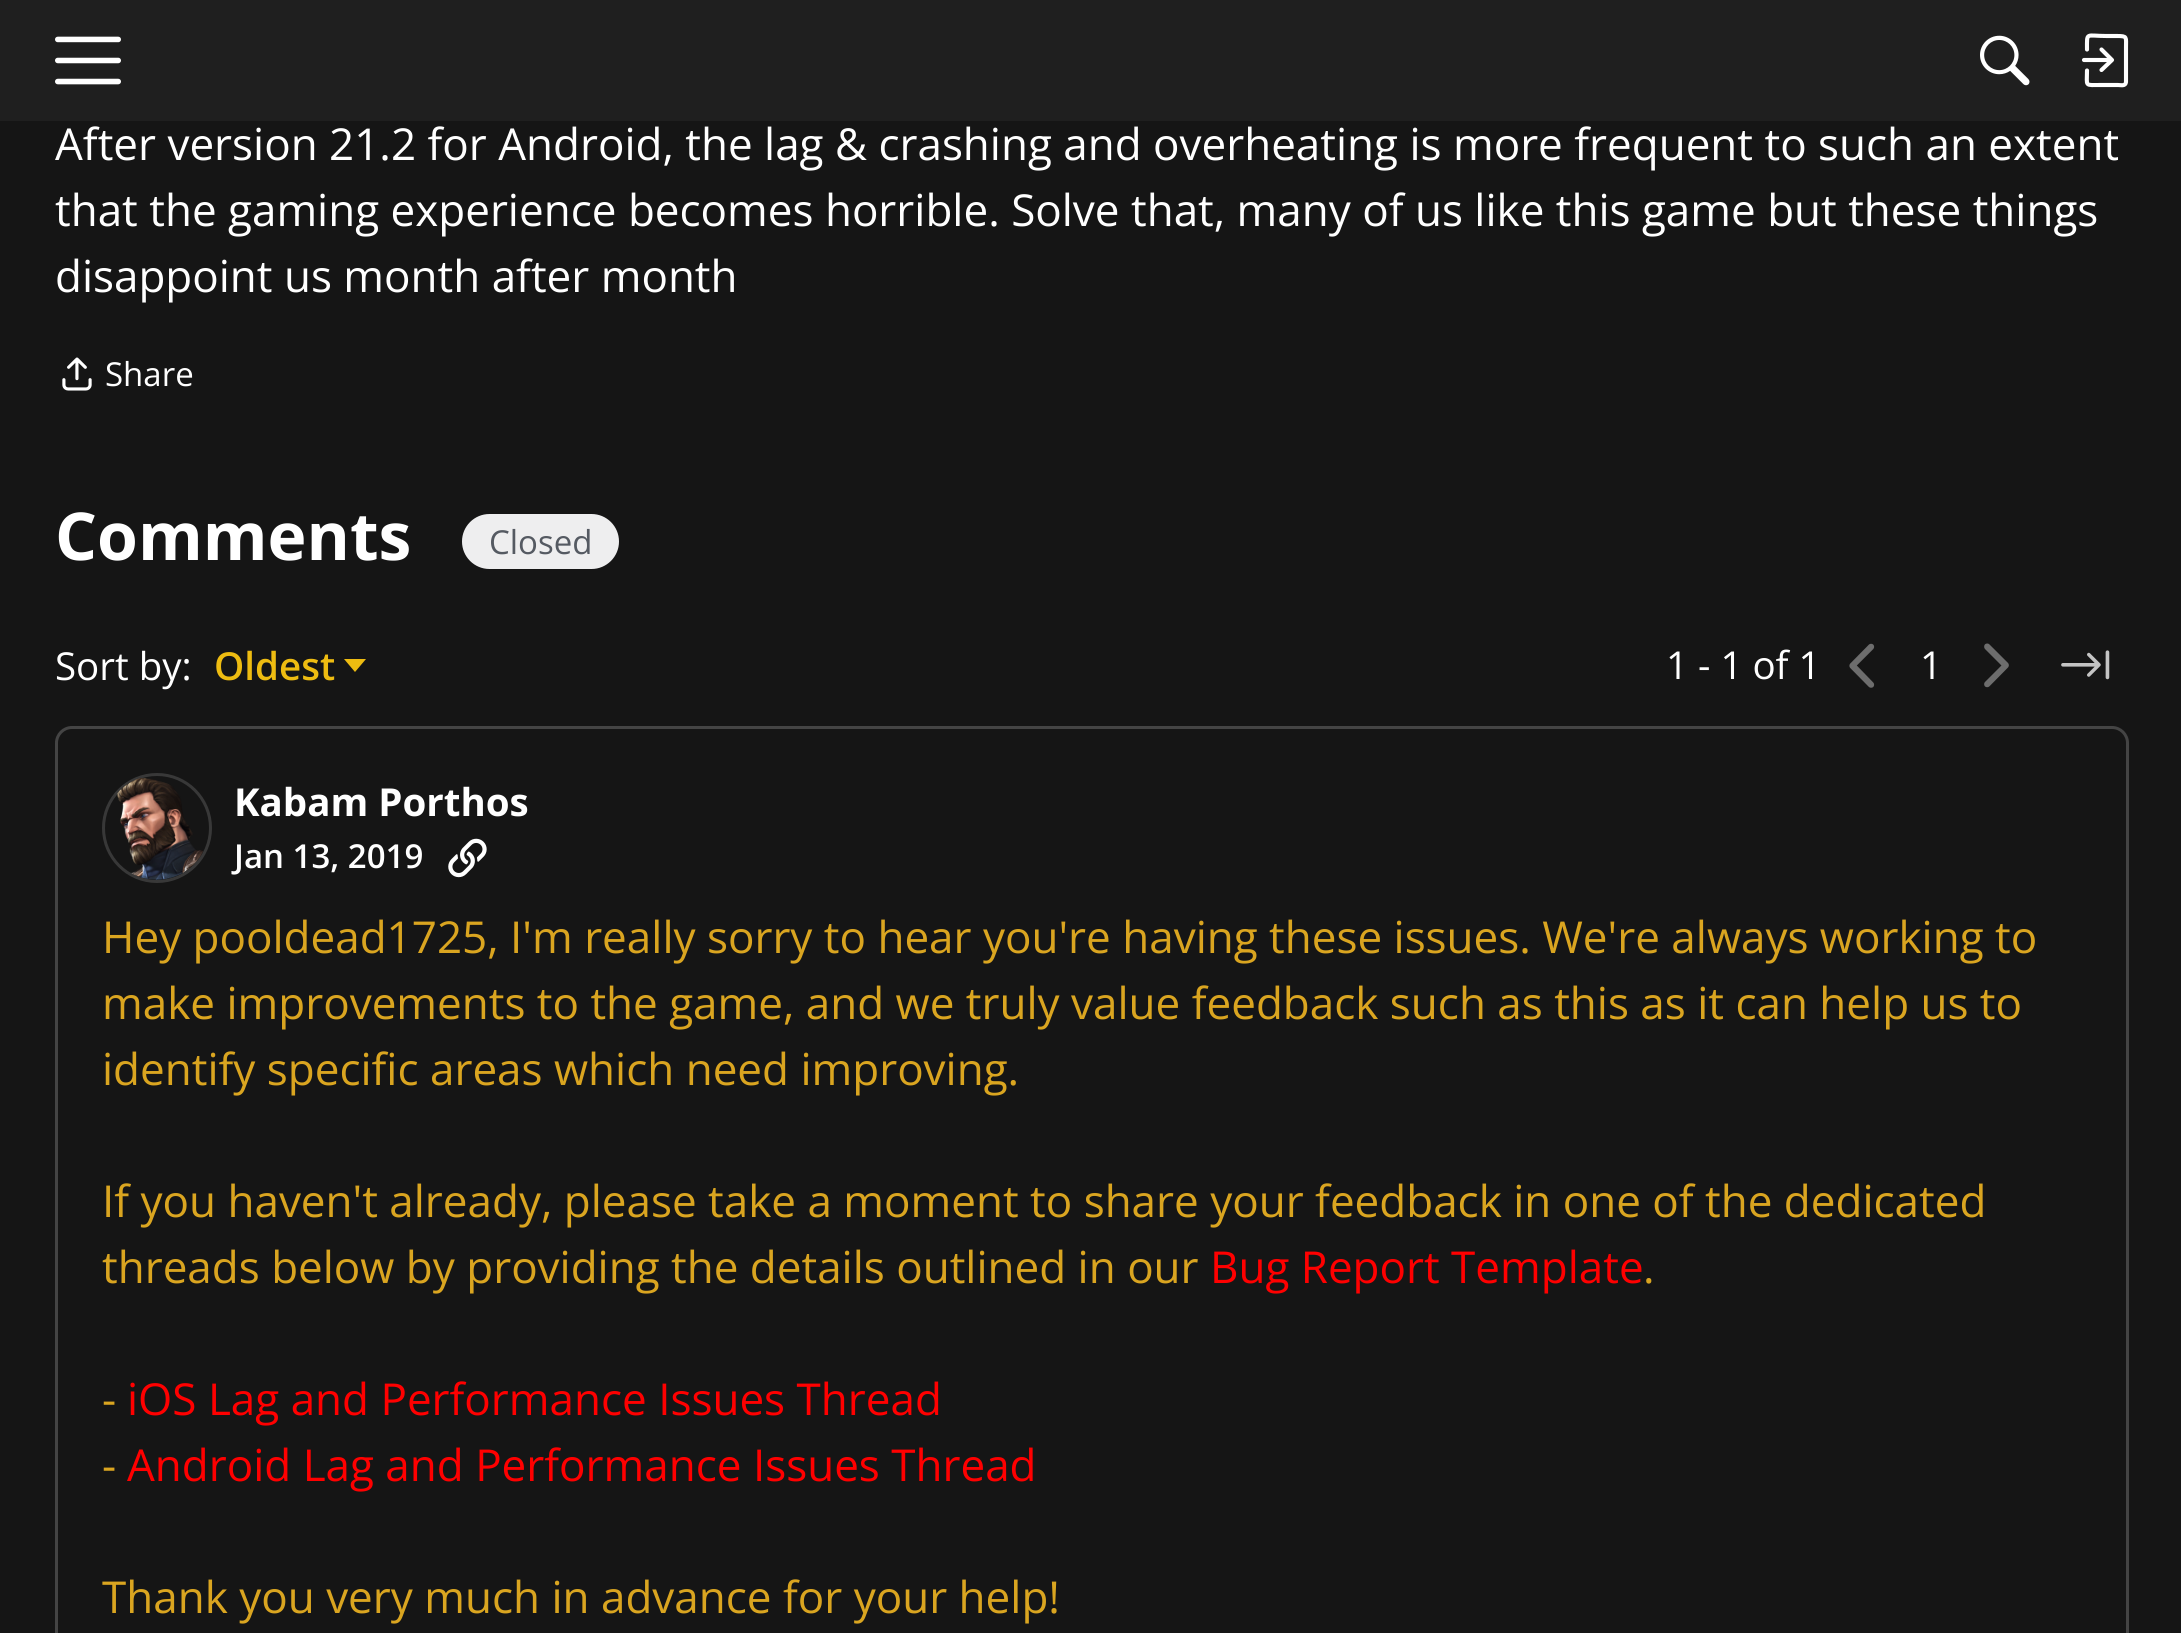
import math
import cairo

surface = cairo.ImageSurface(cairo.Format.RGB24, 2181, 1633)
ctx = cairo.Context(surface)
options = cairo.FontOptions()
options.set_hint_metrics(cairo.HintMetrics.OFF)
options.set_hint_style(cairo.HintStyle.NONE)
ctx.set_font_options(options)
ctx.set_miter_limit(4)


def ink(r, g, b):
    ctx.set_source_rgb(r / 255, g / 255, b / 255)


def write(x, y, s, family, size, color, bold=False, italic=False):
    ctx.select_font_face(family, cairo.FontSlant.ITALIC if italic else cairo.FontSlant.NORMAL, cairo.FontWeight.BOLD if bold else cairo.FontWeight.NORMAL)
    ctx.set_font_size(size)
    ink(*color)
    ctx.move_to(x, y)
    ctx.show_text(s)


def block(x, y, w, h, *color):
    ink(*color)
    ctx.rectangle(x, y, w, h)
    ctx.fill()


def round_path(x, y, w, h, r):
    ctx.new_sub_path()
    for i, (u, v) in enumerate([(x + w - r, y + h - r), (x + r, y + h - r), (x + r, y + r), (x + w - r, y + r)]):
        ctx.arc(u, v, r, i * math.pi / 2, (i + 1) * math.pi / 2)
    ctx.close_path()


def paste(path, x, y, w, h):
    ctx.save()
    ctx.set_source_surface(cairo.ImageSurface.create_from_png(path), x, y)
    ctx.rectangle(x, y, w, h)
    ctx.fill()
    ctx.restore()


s1 = dict(family="Open Sans", size=44, color=(255, 255, 255))
s2 = dict(family="Open Sans", size=33, color=(255, 255, 255))
s3 = dict(family="Open Sans", size=66, color=(255, 255, 255), bold=True)
s4 = dict(family="Open Sans", size=33, color=(85, 90, 98))
s5 = dict(family="Open Sans", size=38.5, color=(255, 255, 255))
s6 = dict(family="Open Sans SemiBold", size=38.5, color=(238, 188, 17))
s7 = dict(family="Open Sans", size=38.5, color=(255, 255, 255), bold=True)
s8 = dict(family="Open Sans SemiBold", size=33, color=(255, 255, 255))
s9 = dict(family="Open Sans", size=44, color=(218, 165, 32))
s10 = dict(family="Open Sans", size=44, color=(255, 0, 0))

ink(21, 21, 21)
ctx.paint()
block(0, 0, 2181, 121, 31, 31, 31)
paste("pic1.png", 55, 36, 66, 49)
paste("pic2.png", 1980, 35, 50, 51)
ctx.new_path()
ctx.move_to(2101.5, 70)
ctx.line_to(2112, 60)
ctx.line_to(2101.5, 49.5)
ink(255, 255, 255)
ctx.set_line_width(4.1)
ctx.set_line_cap(cairo.LineCap.ROUND)
ctx.set_line_join(cairo.LineJoin.ROUND)
ctx.stroke()
ctx.new_path()
ctx.move_to(2111, 60)
ctx.line_to(2084, 60)
ctx.set_line_join(cairo.LineJoin.MITER)
ctx.stroke()
ctx.new_path()
ctx.move_to(2087, 49.5)
ctx.curve_to(2087, 31.5, 2085.5, 36, 2106.5, 36)
ctx.line_to(2117, 36)
ctx.curve_to(2127.5, 36, 2126, 37, 2126, 47.5)
ctx.line_to(2126, 82)
ctx.curve_to(2125.5, 86.5, 2121, 85, 2118, 85)
ctx.line_to(2101.5, 85)
ctx.curve_to(2084, 85, 2087, 87, 2087, 70.5)
ctx.set_line_join(cairo.LineJoin.ROUND)
ctx.stroke()
write(55, 160, "After version 21.2 for Android, the lag & crashing and overheating is more frequent to such an extent", **s1)
write(55, 226, "that the gaming experience becomes horrible. Solve that, many of us like this game but these things", **s1)
write(55, 292, "disappoint us month after month", **s1)
paste("pic3.png", 62, 357, 30, 34)
write(105, 386, "Share", **s2)
write(55, 560, "Comments", **s3)
ink(238, 238, 239)
round_path(463.5, 515.5, 154, 52, 26)
ctx.fill_preserve()
ctx.set_line_width(3)
ctx.set_line_cap(cairo.LineCap.BUTT)
ctx.set_line_join(cairo.LineJoin.MITER)
ctx.stroke()
write(489, 554, "Closed", **s4)
write(55, 680, "Sort by:", **s5)
write(214, 680, "Oldest", **s6)
ctx.new_path()
ctx.move_to(344, 659)
ctx.line_to(366, 659)
ctx.line_to(355, 672)
ctx.close_path()
ctx.fill()
write(1666, 679, "1 - 1 of 1", **s5)
paste("pic4.png", 1849, 643, 26, 45)
write(1920, 679, "1", **s5)
paste("pic5.png", 1984, 643, 25, 45)
paste("pic6.png", 2061, 650, 49, 30)
round_path(56.5, 727.5, 2071, 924, 15.5)
ink(68, 68, 68)
ctx.stroke()
ctx.arc(157, 828, 53.5, 0, 2 * math.pi)
ink(56, 56, 56)
ctx.stroke()
paste("pic7.png", 117, 778, 86, 102)
write(234, 816, "Kabam Porthos", **s7)
write(234, 868, "Jan 13, 2019", **s8)
paste("pic8.png", 448, 838, 39, 40)
write(102, 953, "Hey pooldead1725, I'm really sorry to hear you're having these issues. We're always working to", **s9)
write(102, 1019, "make improvements to the game, and we truly value feedback such as this as it can help us to", **s9)
write(102, 1085, "identify specific areas which need improving.", **s9)
write(102, 1217, "If you haven't already, please take a moment to share your feedback in one of the dedicated", **s9)
write(102, 1283, "threads below by providing the details outlined in our", **s9)
write(1210, 1283, "Bug Report Template", **s10)
write(1643, 1283, ".", **s9)
write(102, 1415, "-", **s9)
write(127, 1415, "iOS Lag and Performance Issues Thread", **s10)
write(102, 1481, "-", **s9)
write(127, 1481, "Android Lag and Performance Issues Thread", **s10)
write(102, 1613, "Thank you very much in advance for your help!", **s9)
surface.write_to_png("screenshot.png")
